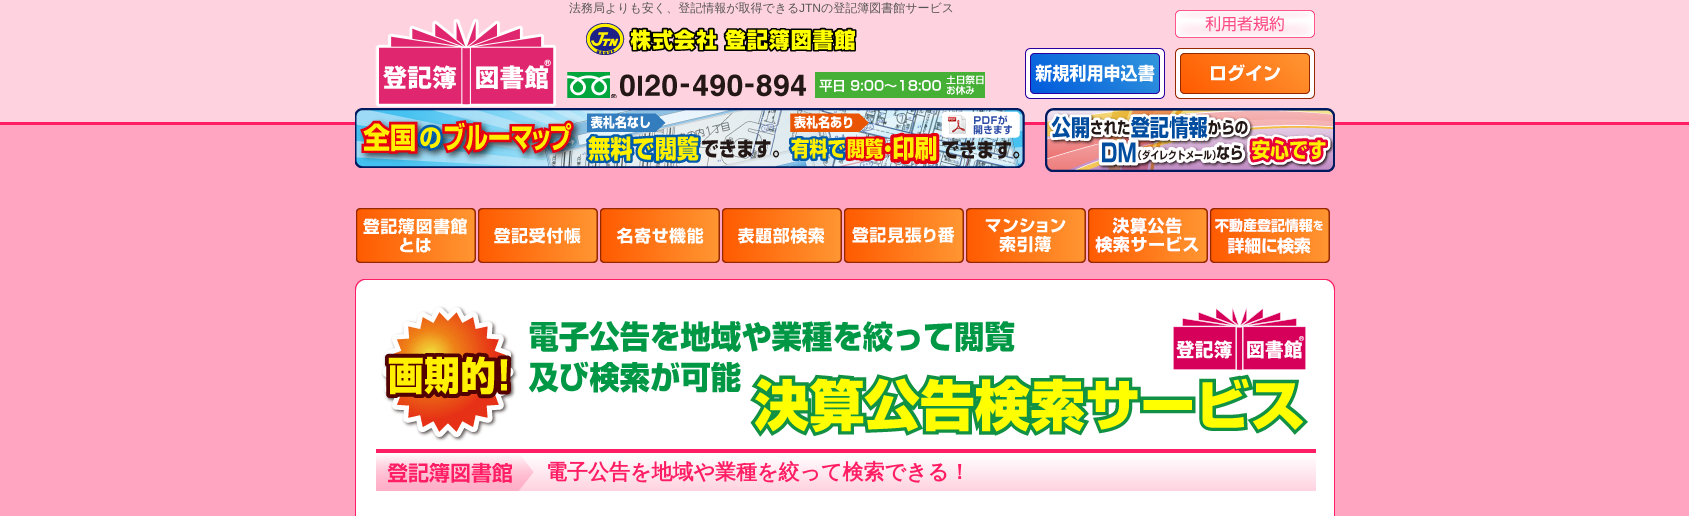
import math
import cairo

surface = cairo.ImageSurface(cairo.Format.RGB24, 1689, 516)
ctx = cairo.Context(surface)
options = cairo.FontOptions()
options.set_hint_metrics(cairo.HintMetrics.OFF)
options.set_hint_style(cairo.HintStyle.NONE)
ctx.set_font_options(options)
ctx.set_miter_limit(4)


def ink(r, g, b):
    ctx.set_source_rgb(r / 255, g / 255, b / 255)


def write(x, y, s, family, size, color, bold=False, italic=False):
    ctx.select_font_face(family, cairo.FontSlant.ITALIC if italic else cairo.FontSlant.NORMAL, cairo.FontWeight.BOLD if bold else cairo.FontWeight.NORMAL)
    ctx.set_font_size(size)
    ink(*color)
    ctx.move_to(x, y)
    ctx.show_text(s)


def block(x, y, w, h, *color):
    ink(*color)
    ctx.rectangle(x, y, w, h)
    ctx.fill()


def paste(path, x, y, w, h):
    ctx.save()
    ctx.set_source_surface(cairo.ImageSurface.create_from_png(path), x, y)
    ctx.rectangle(x, y, w, h)
    ctx.fill()
    ctx.restore()


s1 = dict(family="WenQuanYi Zen Hei Medium", size=12, color=(85, 85, 85))
s2 = dict(family="Liberation Sans", size=12, color=(85, 85, 85))
s3 = dict(family="WenQuanYi Zen Hei", size=21, color=(255, 30, 100), bold=True)

ink(255, 165, 193)
ctx.paint()
paste("pic1.png", 0, 0, 1689, 125)
write(569, 12, "法務局よりも安く、登記情報が取得できる", **s1)
write(799, 12, "JTN", **s2)
write(821, 12, "の登記簿図書館サービス", **s1)
paste("pic2.png", 375, 19, 181, 88)
paste("pic3.png", 586, 23, 271, 32)
paste("pic4.png", 567, 72, 418, 26)
paste("pic5.png", 1175, 10, 140, 28)
paste("pic6.png", 1025, 48, 140, 51)
paste("pic7.png", 1175, 48, 140, 51)
paste("pic8.png", 355, 108, 670, 60)
paste("pic9.png", 1045, 108, 290, 64)
paste("pic10.png", 356, 208, 120, 55)
paste("pic11.png", 478, 208, 120, 55)
paste("pic12.png", 600, 208, 120, 55)
paste("pic13.png", 722, 208, 120, 55)
paste("pic14.png", 844, 208, 120, 55)
paste("pic15.png", 966, 208, 120, 55)
paste("pic16.png", 1088, 208, 120, 55)
paste("pic17.png", 1210, 208, 120, 55)
paste("pic18.png", 355, 279, 980, 20)
block(356, 299, 978, 217, 255, 255, 255)
block(1334, 299, 1, 217, 255, 30, 100)
block(355, 299, 1, 217, 255, 30, 100)
paste("pic19.png", 381, 306, 927, 136)
paste("pic20.png", 376, 454, 940, 37)
block(376, 449, 940, 4, 255, 30, 100)
write(546, 479, "電子公告を地域や業種を絞って検索できる！", **s3)
surface.write_to_png("screenshot.png")
